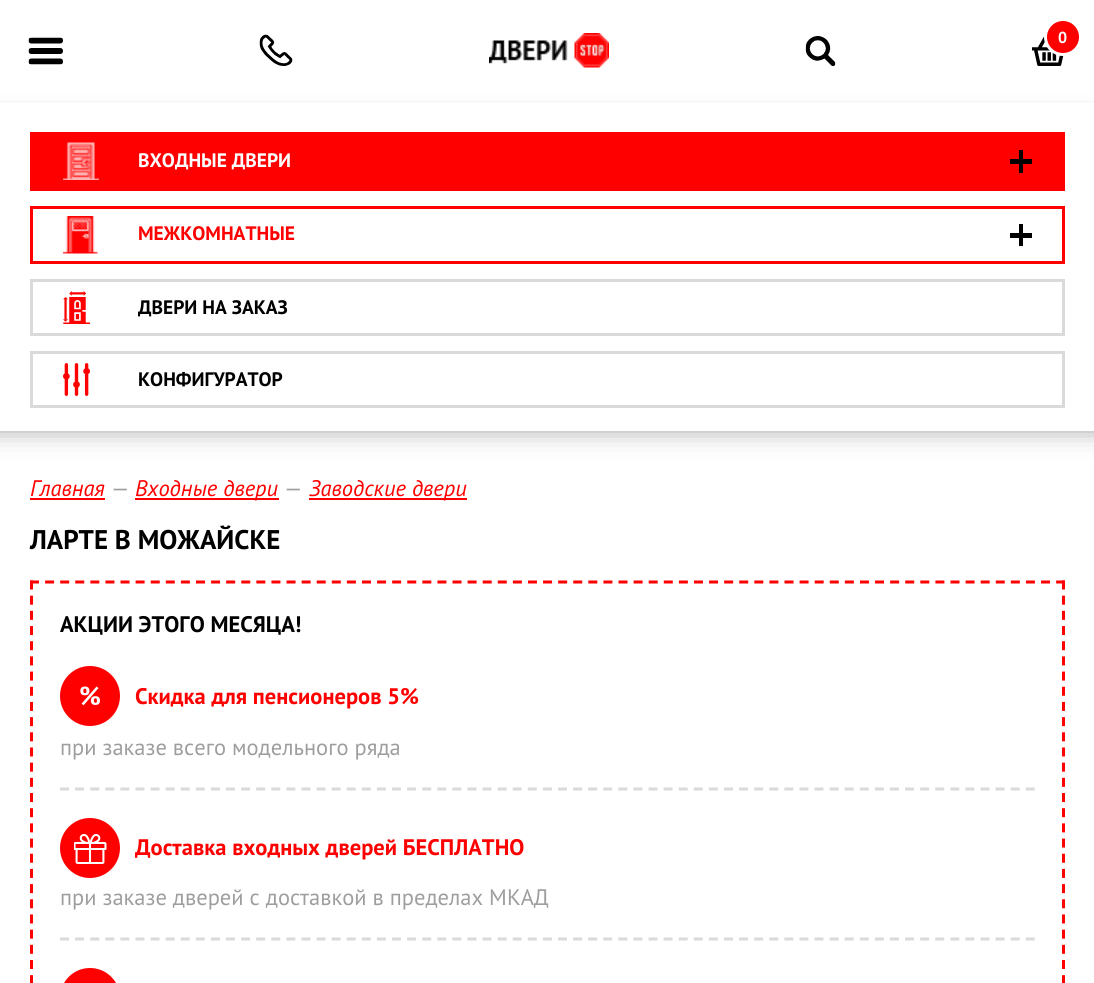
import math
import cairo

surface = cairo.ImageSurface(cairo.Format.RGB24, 1094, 983)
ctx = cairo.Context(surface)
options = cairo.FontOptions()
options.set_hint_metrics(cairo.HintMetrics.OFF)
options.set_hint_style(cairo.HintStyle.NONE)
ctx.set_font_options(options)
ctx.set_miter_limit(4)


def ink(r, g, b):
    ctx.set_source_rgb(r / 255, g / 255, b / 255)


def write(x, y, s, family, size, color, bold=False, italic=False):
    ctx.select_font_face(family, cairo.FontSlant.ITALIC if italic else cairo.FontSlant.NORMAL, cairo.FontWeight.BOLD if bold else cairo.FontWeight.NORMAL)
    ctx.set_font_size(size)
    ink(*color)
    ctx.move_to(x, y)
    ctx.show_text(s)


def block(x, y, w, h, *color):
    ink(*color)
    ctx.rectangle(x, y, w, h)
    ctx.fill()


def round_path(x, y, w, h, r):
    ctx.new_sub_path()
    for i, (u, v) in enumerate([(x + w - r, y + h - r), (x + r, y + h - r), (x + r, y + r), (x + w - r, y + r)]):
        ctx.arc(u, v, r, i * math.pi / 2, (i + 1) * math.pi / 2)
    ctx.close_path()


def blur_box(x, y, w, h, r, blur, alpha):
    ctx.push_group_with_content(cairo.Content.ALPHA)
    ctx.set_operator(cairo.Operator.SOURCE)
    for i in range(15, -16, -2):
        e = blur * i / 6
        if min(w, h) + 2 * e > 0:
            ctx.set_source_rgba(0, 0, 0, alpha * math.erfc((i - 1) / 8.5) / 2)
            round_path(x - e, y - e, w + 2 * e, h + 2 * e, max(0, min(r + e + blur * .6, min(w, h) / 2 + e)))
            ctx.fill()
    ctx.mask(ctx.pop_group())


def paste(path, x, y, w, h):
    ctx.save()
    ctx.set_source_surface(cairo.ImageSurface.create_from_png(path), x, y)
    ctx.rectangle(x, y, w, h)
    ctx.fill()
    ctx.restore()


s1 = dict(family="PT Sans", size=16, color=(255, 255, 255), bold=True)
s2 = dict(family="PT Sans", size=19.5, color=(255, 255, 255), bold=True)
s3 = dict(family="PT Sans", size=19.5, color=(255, 0, 0), bold=True)
s4 = dict(family="PT Sans", size=19.5, color=(0, 0, 0), bold=True)
s5 = dict(family="PT Sans", size=22.5, color=(255, 0, 0), italic=True)
s6 = dict(family="PT Sans", size=22.5, color=(158, 158, 158))
s7 = dict(family="PT Sans", size=27, color=(0, 0, 0), bold=True)
s8 = dict(family="PT Sans", size=22.5, color=(0, 0, 0), bold=True)
s9 = dict(family="PT Sans", size=26, color=(255, 255, 255), bold=True)
s10 = dict(family="PT Sans", size=22.5, color=(255, 0, 0), bold=True)

ink(255, 255, 255)
ctx.paint()
block(0, 101, 1094, 2, 249, 249, 249)
paste("pic1.png", 28, 37, 35, 28)
paste("pic2.png", 259, 34, 34, 32)
paste("pic3.png", 489, 33, 120, 35)
paste("pic4.png", 805, 36, 31, 30)
paste("pic5.png", 1032, 36, 32, 30)
ink(255, 0, 0)
ctx.arc(1063, 37, 17.5, 0, 2 * math.pi)
ctx.fill_preserve()
ink(255, 255, 255)
ctx.set_line_width(3)
ctx.stroke()
write(1058, 43, "0", **s1)
ctx.save()
ctx.set_fill_rule(cairo.FillRule.EVEN_ODD)
ctx.new_path()
ctx.move_to(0, 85)
ctx.line_to(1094, 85)
ctx.line_to(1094, 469)
ctx.line_to(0, 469)
ctx.close_path()
ctx.move_to(-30, 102)
ctx.line_to(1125, 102)
ctx.line_to(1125, 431)
ctx.line_to(-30, 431)
ctx.close_path()
ctx.clip()
ink(0, 0, 0)
blur_box(-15, 128, 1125, 298, 0, 14, 0.5)
ctx.restore()
block(30, 132, 1035, 59, 255, 0, 0)
paste("pic6.png", 63, 142, 36, 38)
write(138, 167, "ВХОДНЫЕ ДВЕРИ", **s2)
block(1010, 159, 22, 5, 0, 0, 0)
block(1019, 150, 4, 23, 0, 0, 0)
ctx.rectangle(31.5, 207.5, 1032, 55)
ink(255, 0, 0)
ctx.stroke()
paste("pic7.png", 63, 216, 35, 38)
write(138, 240, "МЕЖКОМНАТНЫЕ", **s3)
block(1010, 233, 22, 5, 0, 0, 0)
block(1019, 224, 4, 22, 0, 0, 0)
ctx.rectangle(31.5, 280.5, 1032, 54)
ink(218, 218, 218)
ctx.stroke()
paste("pic8.png", 63, 291, 27, 33)
write(138, 314, "ДВЕРИ НА ЗАКАЗ", **s4)
ctx.rectangle(31.5, 352.5, 1032, 54)
ink(218, 218, 218)
ctx.stroke()
paste("pic9.png", 63, 363, 27, 33)
write(138, 386, "КОНФИГУРАТОР", **s4)
write(30, 496, "Главная", **s5)
block(30, 498, 75, 2, 255, 0, 0)
write(111, 496, "—", **s6)
block(135, 498, 144, 2, 255, 0, 0)
write(135, 496, "Входные двери", **s5)
write(284, 496, "—", **s6)
block(309, 498, 158, 2, 255, 0, 0)
write(309, 496, "Заводские двери", **s5)
write(30, 549, "ЛАРТЕ В МОЖАЙСКЕ", **s7)
ctx.new_path()
ctx.move_to(30, 582)
ctx.line_to(1065, 582)
ink(255, 0, 0)
ctx.set_dash([9, 6.09])
ctx.stroke()
ctx.new_path()
ctx.move_to(1063.5, 580.5)
ctx.line_to(1063.5, 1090.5)
ctx.set_dash([9, 6.18])
ctx.stroke()
ctx.new_path()
ctx.move_to(31.5, 580.5)
ctx.line_to(31.5, 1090.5)
ctx.stroke()
write(60, 632, "АКЦИИ ЭТОГО МЕСЯЦА!", **s8)
ctx.new_path()
ctx.move_to(60, 789)
ctx.line_to(1035, 789)
ink(218, 218, 218)
ctx.set_dash([9, 6.09])
ctx.stroke()
ink(255, 0, 0)
ctx.arc(90, 696, 30, 0, 2 * math.pi)
ctx.fill()
write(79, 705, "%", **s9)
write(135, 704, "Скидка для пенсионеров 5%", **s10)
write(60, 755, "при заказе всего модельного ряда", **s6)
ctx.new_path()
ctx.move_to(60, 939)
ctx.line_to(1035, 939)
ink(218, 218, 218)
ctx.stroke()
ink(255, 0, 0)
ctx.arc(90, 848, 30, 0, 2 * math.pi)
ctx.fill()
paste("pic10.png", 74, 834, 33, 30)
write(135, 855, "Доставка входных дверей БЕСПЛАТНО", **s10)
write(60, 905, "при заказе дверей с доставкой в пределах МКАД", **s6)
ink(255, 0, 0)
round_path(60, 968, 60, 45, 30)
ctx.fill()
surface.write_to_png("screenshot.png")
